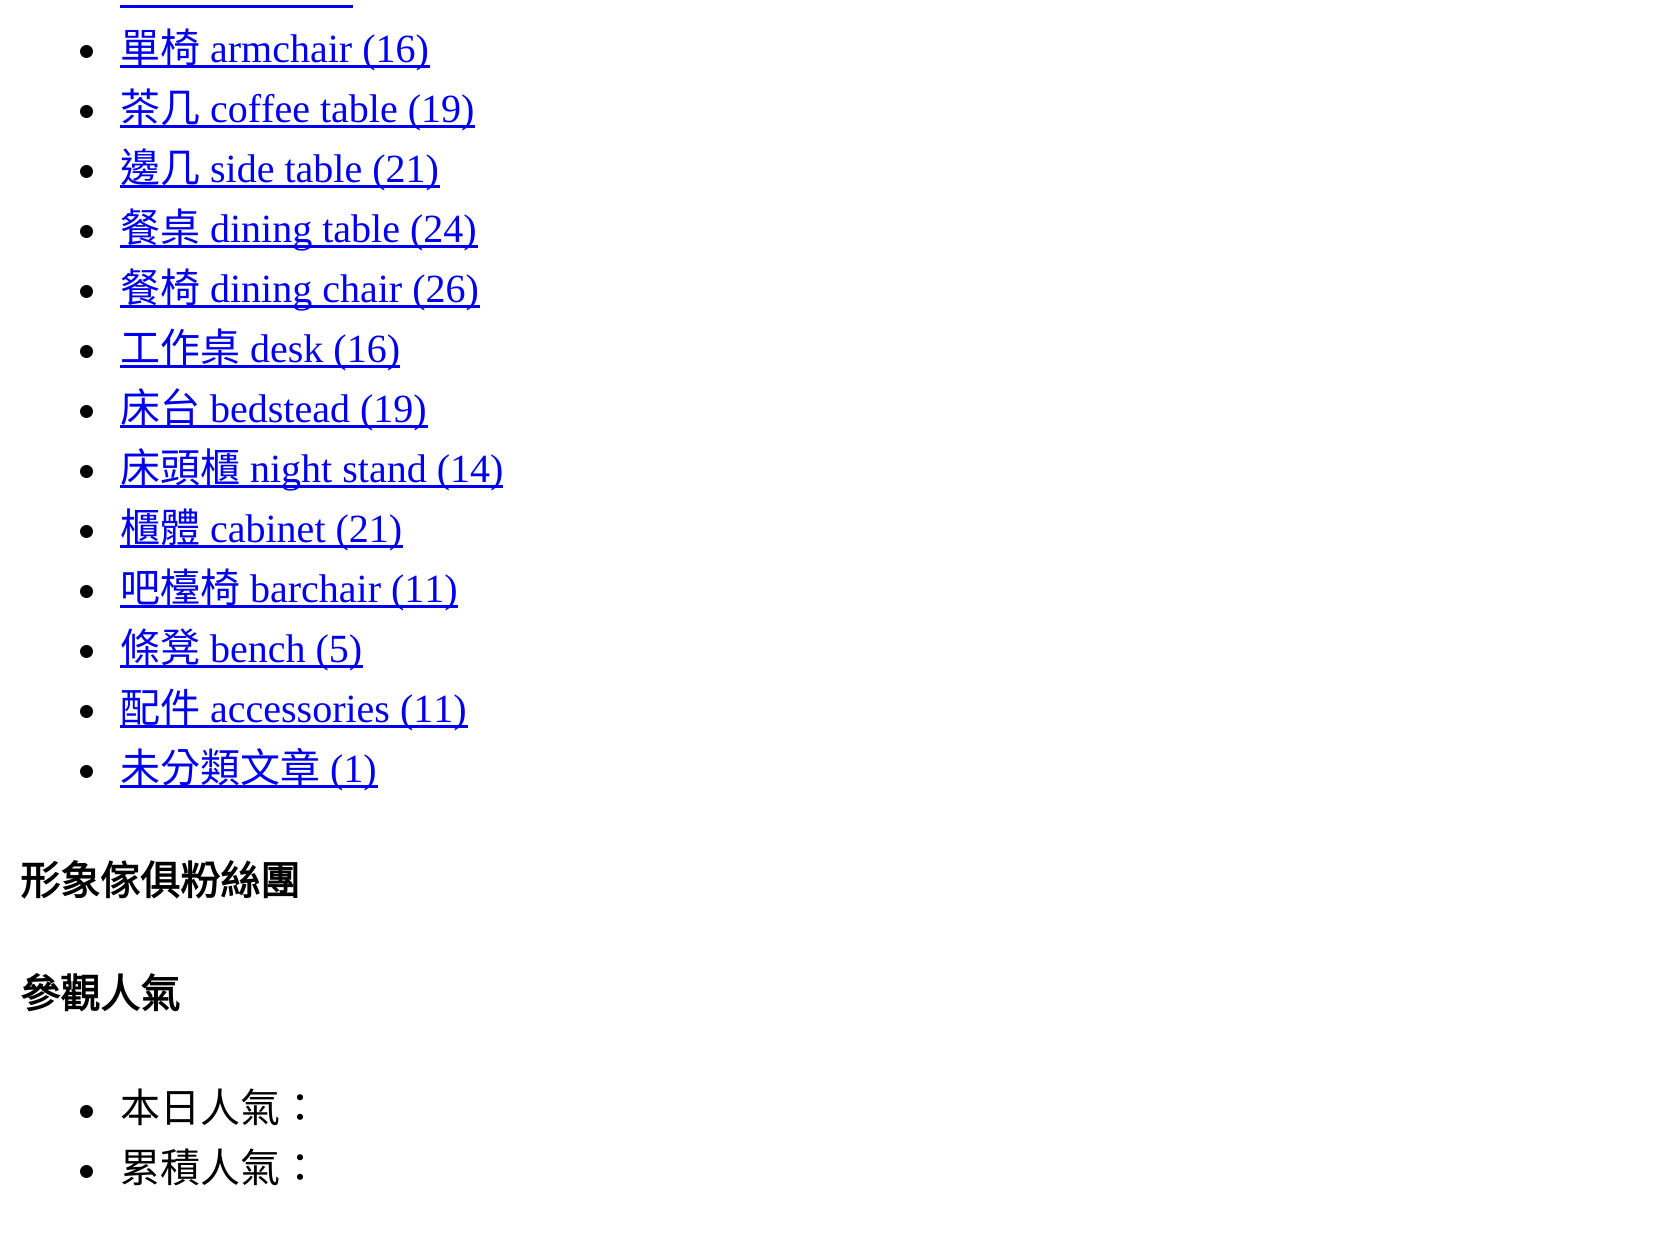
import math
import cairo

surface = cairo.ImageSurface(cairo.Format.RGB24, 1677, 1234)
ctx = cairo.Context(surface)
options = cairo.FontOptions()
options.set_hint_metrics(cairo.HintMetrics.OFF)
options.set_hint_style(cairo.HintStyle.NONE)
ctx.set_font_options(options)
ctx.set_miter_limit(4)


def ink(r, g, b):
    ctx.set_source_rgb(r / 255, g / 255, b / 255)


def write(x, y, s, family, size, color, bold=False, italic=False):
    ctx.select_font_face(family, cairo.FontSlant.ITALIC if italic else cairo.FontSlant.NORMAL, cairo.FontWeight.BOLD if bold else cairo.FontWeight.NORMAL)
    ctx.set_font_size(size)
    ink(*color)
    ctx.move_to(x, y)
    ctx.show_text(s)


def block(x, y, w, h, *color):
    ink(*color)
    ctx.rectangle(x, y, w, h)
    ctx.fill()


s1 = dict(family="Noto Sans CJK TC", size=40, color=(0, 0, 238))
s2 = dict(family="Liberation Serif", size=40, color=(0, 0, 238))
s3 = dict(family="Noto Sans CJK TC", size=40, color=(0, 0, 0), bold=True)
s4 = dict(family="Noto Sans CJK TC", size=40, color=(0, 0, 0))

ink(255, 255, 255)
ctx.paint()
block(120, 5, 233, 3, 0, 0, 238)
ink(0, 0, 0)
ctx.arc(86.5, 51.5, 6.5, 0, 2 * math.pi)
ctx.fill()
block(120, 65, 310, 3, 0, 0, 238)
write(120, 62, "單椅", **s1)
write(210, 62, "armchair (16)", **s2)
ink(0, 0, 0)
ctx.new_path()
ctx.arc(86.5, 111.5, 6.5, 0, 2 * math.pi)
ctx.fill()
block(120, 125, 355, 3, 0, 0, 238)
write(120, 122, "茶几", **s1)
write(210, 122, "coffee table (19)", **s2)
ink(0, 0, 0)
ctx.new_path()
ctx.arc(86.5, 171.5, 6.5, 0, 2 * math.pi)
ctx.fill()
block(120, 185, 320, 3, 0, 0, 238)
write(120, 182, "邊几", **s1)
write(210, 182, "side table (21)", **s2)
ink(0, 0, 0)
ctx.new_path()
ctx.arc(86.5, 231.5, 6.5, 0, 2 * math.pi)
ctx.fill()
block(120, 245, 358, 3, 0, 0, 238)
write(120, 242, "餐桌", **s1)
write(210, 242, "dining table (24)", **s2)
ink(0, 0, 0)
ctx.new_path()
ctx.arc(86.5, 291.5, 6.5, 0, 2 * math.pi)
ctx.fill()
block(120, 305, 360, 3, 0, 0, 238)
write(120, 302, "餐椅", **s1)
write(210, 302, "dining chair (26)", **s2)
ink(0, 0, 0)
ctx.new_path()
ctx.arc(86.5, 351.5, 6.5, 0, 2 * math.pi)
ctx.fill()
block(120, 365, 280, 3, 0, 0, 238)
write(120, 362, "工作桌", **s1)
write(250, 362, "desk (16)", **s2)
ink(0, 0, 0)
ctx.new_path()
ctx.arc(86.5, 411.5, 6.5, 0, 2 * math.pi)
ctx.fill()
block(120, 425, 308, 3, 0, 0, 238)
write(120, 422, "床台", **s1)
write(210, 422, "bedstead (19)", **s2)
ink(0, 0, 0)
ctx.new_path()
ctx.arc(86.5, 471.5, 6.5, 0, 2 * math.pi)
ctx.fill()
block(120, 485, 383, 3, 0, 0, 238)
write(120, 482, "床頭櫃", **s1)
write(250, 482, "night stand (14)", **s2)
ink(0, 0, 0)
ctx.new_path()
ctx.arc(86.5, 531.5, 6.5, 0, 2 * math.pi)
ctx.fill()
block(120, 545, 283, 3, 0, 0, 238)
write(120, 542, "櫃體", **s1)
write(210, 542, "cabinet (21)", **s2)
ink(0, 0, 0)
ctx.new_path()
ctx.arc(86.5, 591.5, 6.5, 0, 2 * math.pi)
ctx.fill()
block(120, 605, 338, 3, 0, 0, 238)
write(120, 602, "吧檯椅", **s1)
write(250, 602, "barchair (11)", **s2)
ink(0, 0, 0)
ctx.new_path()
ctx.arc(86.5, 651.5, 6.5, 0, 2 * math.pi)
ctx.fill()
block(120, 665, 243, 3, 0, 0, 238)
write(120, 662, "條凳", **s1)
write(210, 662, "bench (5)", **s2)
ink(0, 0, 0)
ctx.new_path()
ctx.arc(86.5, 711.5, 6.5, 0, 2 * math.pi)
ctx.fill()
block(120, 725, 348, 3, 0, 0, 238)
write(120, 722, "配件", **s1)
write(210, 722, "accessories (11)", **s2)
ink(0, 0, 0)
ctx.new_path()
ctx.arc(86.5, 771.5, 6.5, 0, 2 * math.pi)
ctx.fill()
block(120, 785, 258, 3, 0, 0, 238)
write(120, 782, "未分類文章", **s1)
write(330, 782, "(1)", **s2)
write(20, 895, "形象傢俱粉絲團", **s3)
write(20, 1008, "參觀人氣", **s3)
ctx.new_path()
ctx.arc(86.5, 1111.5, 6.5, 0, 2 * math.pi)
ctx.fill()
write(120, 1122, "本日人氣：", **s4)
ctx.new_path()
ctx.arc(86.5, 1171.5, 6.5, 0, 2 * math.pi)
ctx.fill()
write(120, 1182, "累積人氣：", **s4)
surface.write_to_png("screenshot.png")
